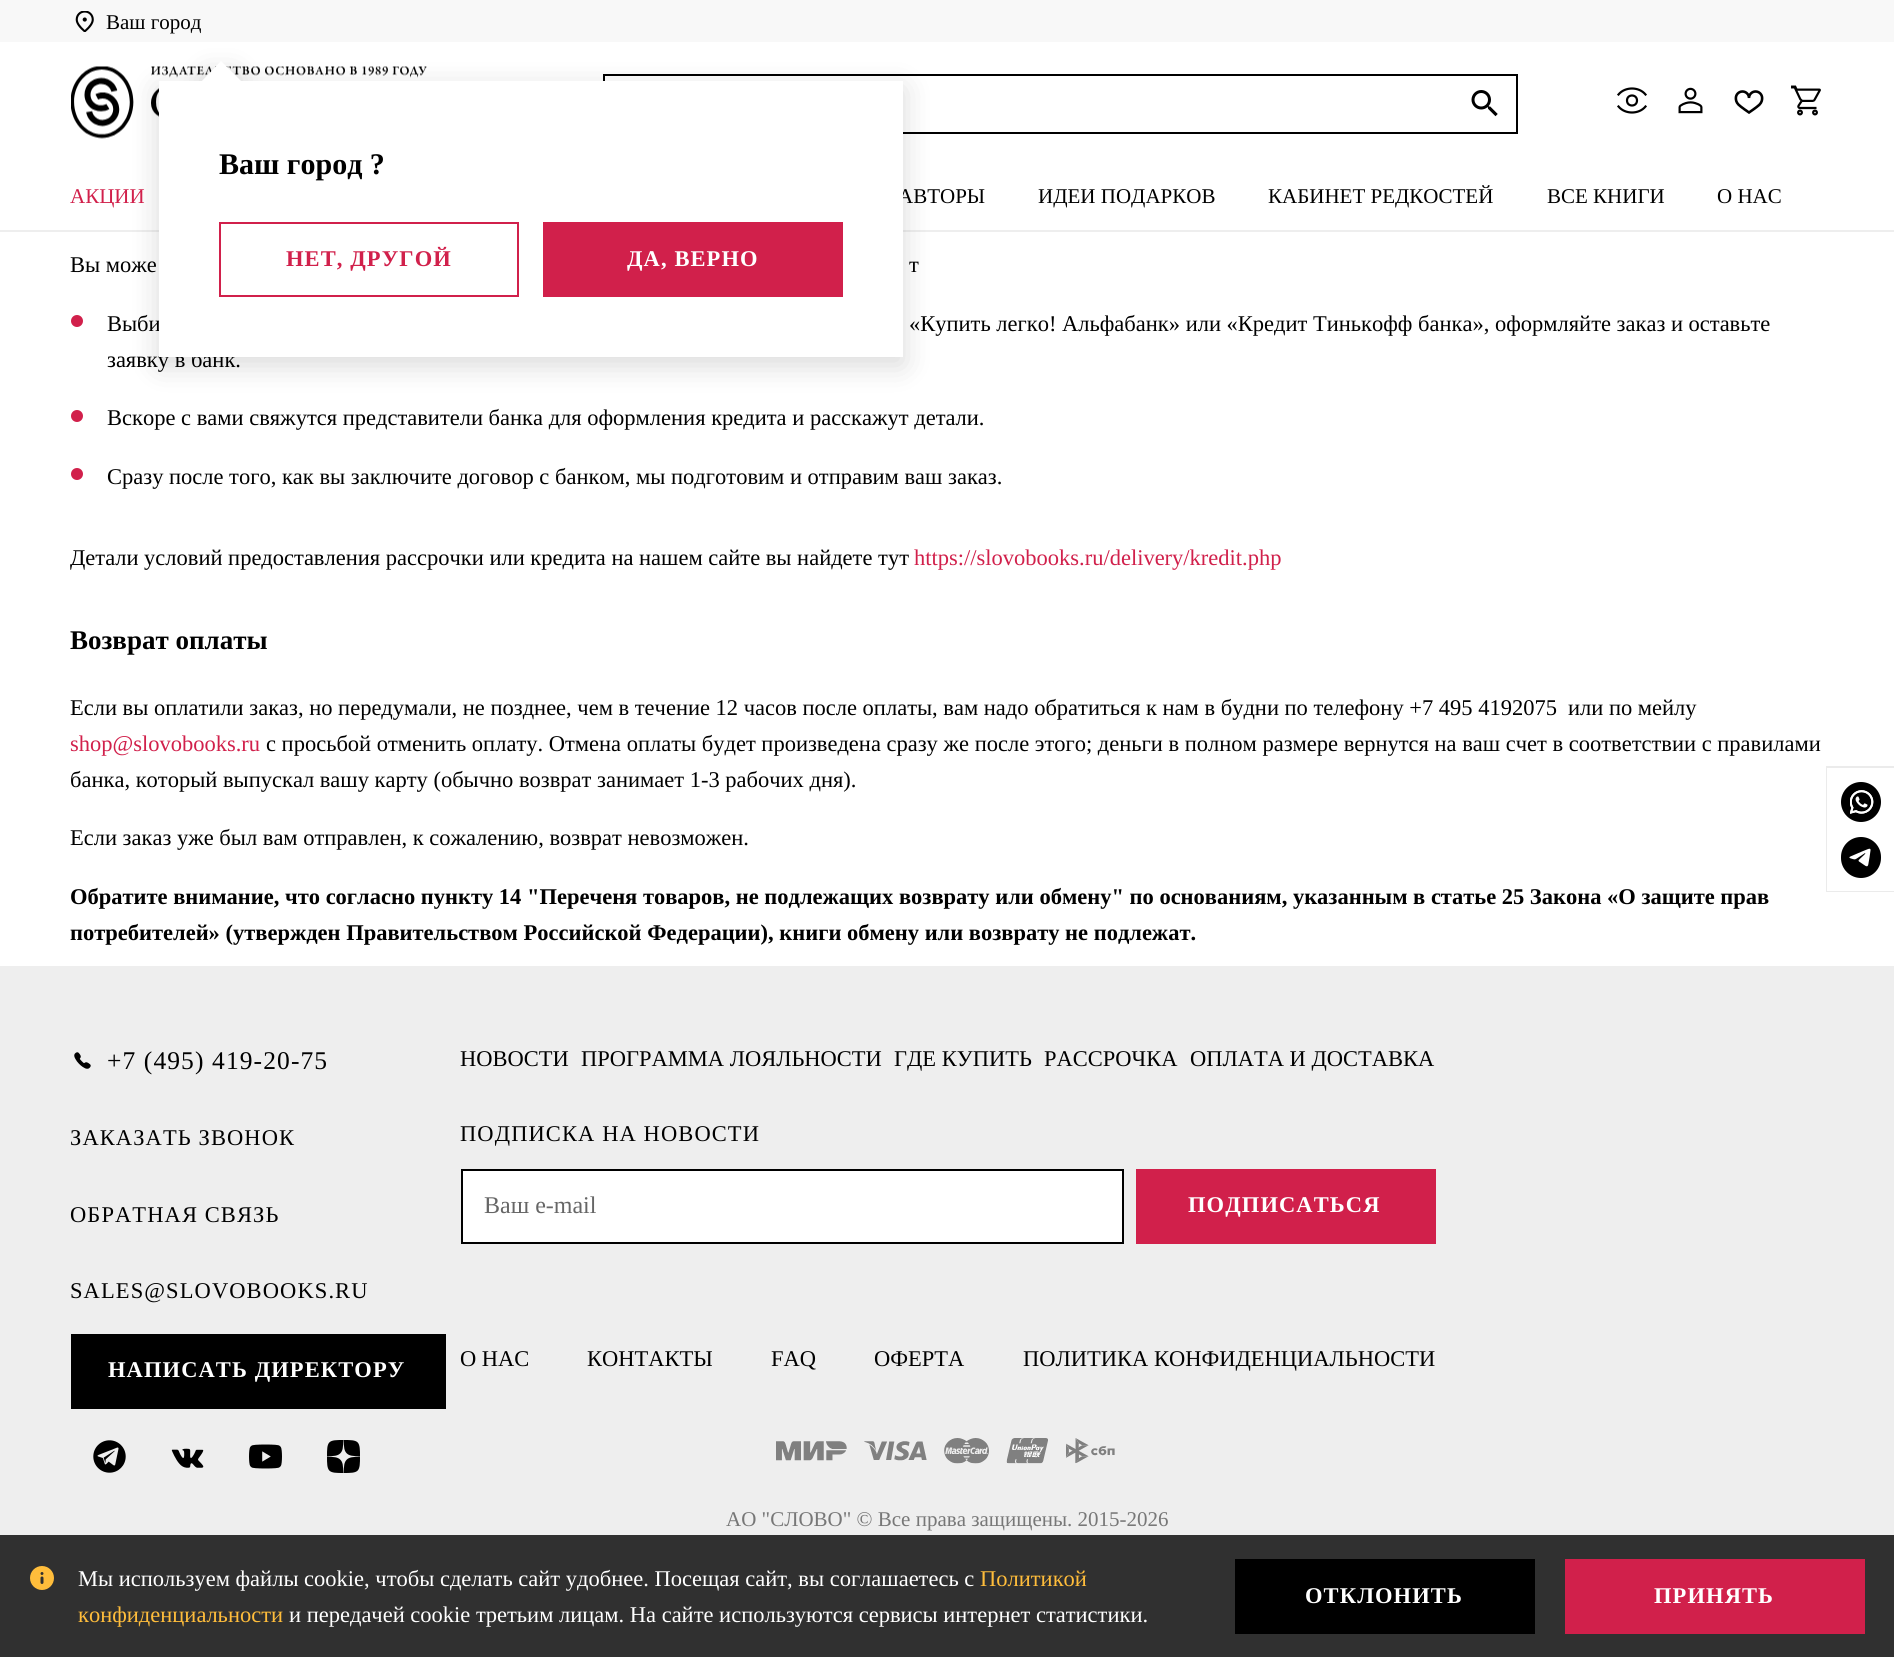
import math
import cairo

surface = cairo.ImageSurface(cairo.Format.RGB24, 1894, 1657)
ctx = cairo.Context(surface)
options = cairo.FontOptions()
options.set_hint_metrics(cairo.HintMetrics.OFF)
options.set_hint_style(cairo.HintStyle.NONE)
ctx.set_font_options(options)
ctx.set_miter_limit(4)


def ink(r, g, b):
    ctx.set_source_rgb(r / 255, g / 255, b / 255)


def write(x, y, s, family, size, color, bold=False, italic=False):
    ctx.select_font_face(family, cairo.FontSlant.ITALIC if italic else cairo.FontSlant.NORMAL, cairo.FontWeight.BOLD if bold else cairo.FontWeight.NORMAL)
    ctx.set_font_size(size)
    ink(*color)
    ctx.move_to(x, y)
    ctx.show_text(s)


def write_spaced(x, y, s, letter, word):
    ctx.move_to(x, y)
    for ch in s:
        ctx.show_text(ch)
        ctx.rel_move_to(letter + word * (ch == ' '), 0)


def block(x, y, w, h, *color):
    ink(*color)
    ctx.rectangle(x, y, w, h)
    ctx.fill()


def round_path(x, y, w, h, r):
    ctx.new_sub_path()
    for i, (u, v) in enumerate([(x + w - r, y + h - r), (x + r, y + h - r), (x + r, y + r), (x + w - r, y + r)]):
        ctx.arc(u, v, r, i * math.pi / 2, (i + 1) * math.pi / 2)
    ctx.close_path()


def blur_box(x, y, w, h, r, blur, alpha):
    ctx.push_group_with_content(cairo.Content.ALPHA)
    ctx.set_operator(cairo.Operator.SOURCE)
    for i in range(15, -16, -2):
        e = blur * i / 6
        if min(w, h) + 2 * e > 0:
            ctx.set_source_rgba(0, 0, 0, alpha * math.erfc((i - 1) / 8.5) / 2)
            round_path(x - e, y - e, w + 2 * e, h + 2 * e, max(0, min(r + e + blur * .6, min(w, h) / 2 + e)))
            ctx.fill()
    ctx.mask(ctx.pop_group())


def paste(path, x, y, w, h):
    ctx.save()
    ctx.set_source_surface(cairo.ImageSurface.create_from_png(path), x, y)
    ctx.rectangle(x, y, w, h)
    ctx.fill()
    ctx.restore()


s1 = dict(family="Liberation Serif", size=21, color=(0, 0, 0))
s2 = dict(family="Liberation Serif", size=22.5, color=(0, 0, 0))
s3 = dict(family="Liberation Serif", size=30, color=(0, 0, 0), bold=True)
s4 = dict(family="Liberation Serif", size=21, color=(209, 32, 75))
s5 = dict(family="Liberation Serif", size=22.5, color=(209, 32, 75))
s6 = dict(family="Liberation Serif", size=27, color=(0, 0, 0), bold=True)
s7 = dict(family="Liberation Serif", size=22.5, color=(0, 0, 0), bold=True)
s8 = dict(family="Liberation Serif", size=24, color=(102, 102, 102))
s9 = dict(family="Liberation Serif", size=21, color=(119, 119, 119))
s10 = dict(family="Liberation Serif", size=22.5, color=(255, 255, 255))
s11 = dict(family="Liberation Serif", size=22.5, color=(255, 189, 59))

ink(255, 255, 255)
ctx.paint()
block(0, 0, 1894, 42, 248, 248, 248)
paste("pic1.png", 75, 11, 19, 21)
write(106, 29, "Ваш город", **s1)
paste("pic2.png", 71, 66, 356, 73)
ctx.rectangle(604, 75, 913, 58)
ctx.stroke()
block(0, 230, 1894, 2, 238, 238, 238)
ink(0, 0, 0)
blur_box(159, 89, 744, 276, 0, 15, 0.15)
blur_box(206, 75, 30, 30, 0, 15, 0.15)
write(898, 203, "АВТОРЫ", **s1)
write(107, 331, "Выби", **s2)
write(107, 367, "заявку в банк.", **s2)
block(159, 81, 744, 276, 255, 255, 255)
ctx.new_path()
ctx.move_to(221, 61)
ctx.line_to(242, 82)
ctx.line_to(221, 104)
ctx.line_to(200, 83)
ctx.close_path()
ctx.fill()
write(219, 174, "Ваш город ?", **s3)
ctx.rectangle(220, 223, 298, 73)
ink(209, 32, 75)
ctx.stroke()
ctx.set_font_size(22.5)
write_spaced(286, 266, "НЕТ, ДРУГОЙ", 1.1, 0)
block(543, 222, 300, 75, 209, 32, 75)
ink(255, 255, 255)
write_spaced(627, 266, "ДА, ВЕРНО", 1.1, 0)
paste("pic3.png", 1471, 90, 27, 27)
ctx.new_path()
ctx.move_to(1618.5, 94.5)
ctx.curve_to(1625, 86.5, 1639, 86.5, 1645.5, 94.5)
ctx.move_to(1645.5, 106.5)
ctx.curve_to(1639, 114.5, 1625, 114.5, 1618.5, 106.5)
ink(0, 0, 0)
ctx.set_line_width(2.2)
ctx.set_line_cap(cairo.LineCap.SQUARE)
ctx.set_line_join(cairo.LineJoin.ROUND)
ctx.stroke()
ctx.arc(1632, 100.5, 5, 0, 2 * math.pi)
ctx.set_line_cap(cairo.LineCap.BUTT)
ctx.set_line_join(cairo.LineJoin.MITER)
ctx.stroke()
paste("pic4.png", 1678, 87, 25, 27)
paste("pic5.png", 1734, 90, 30, 24)
paste("pic6.png", 1791, 85, 30, 31)
write(70, 203, "АКЦИИ", **s4)
write(1038, 203, "ИДЕИ ПОДАРКОВ", **s1)
write(1268, 203, "КАБИНЕТ РЕДКОСТЕЙ", **s1)
write(1547, 203, "ВСЕ КНИГИ", **s1)
write(1717, 203, "О НАС", **s1)
write(70, 272, "Вы може", **s2)
write(909, 272, "т", **s2)
ink(209, 32, 75)
ctx.new_path()
ctx.arc(77, 321, 6, 0, 2 * math.pi)
ctx.fill()
write(909, 331, "«Купить легко! Альфабанк» или «Кредит Тинькофф банка», оформляйте заказ и оставьте", **s2)
ink(209, 32, 75)
ctx.new_path()
ctx.arc(77, 416, 6, 0, 2 * math.pi)
ctx.fill()
write(107, 425, "Вскоре с вами свяжутся представители банка для оформления кредита и расскажут детали.", **s2)
ink(209, 32, 75)
ctx.new_path()
ctx.arc(77, 474, 6, 0, 2 * math.pi)
ctx.fill()
write(107, 484, "Сразу после того, как вы заключите договор с банком, мы подготовим и отправим ваш заказ.", **s2)
write(70, 565, "Детали условий предоставления рассрочки или кредита на нашем сайте вы найдете тут", **s2)
write(914, 565, "https://slovobooks.ru/delivery/kredit.php", **s5)
write(70, 649, "Возврат оплаты", **s6)
write(70, 715, "Если вы оплатили заказ, но передумали, не позднее, чем в течение 12 часов после оплаты, вам надо обратиться к нам в будни по телефону +7 495 4192075", **s2)
write(1568, 715, "или по мейлу", **s2)
write(70, 751, "shop@slovobooks.ru", **s5)
write(266, 751, "с просьбой отменить оплату. Отмена оплаты будет произведена сразу же после этого; деньги в полном размере вернутся на ваш счет в соответствии с правилами", **s2)
write(70, 787, "банка, который выпускал вашу карту (обычно возврат занимает 1-3 рабочих дня).", **s2)
write(70, 845, "Если заказ уже был вам отправлен, к сожалению, возврат невозможен.", **s2)
write(70, 904, "Обратите внимание, что согласно пункту 14 \"Переченя товаров, не подлежащих возврату или обмену\" по основаниям, указанным в статье 25 Закона «О защите прав", **s7)
write(70, 940, "потребителей» (утвержден Правительством Российской Федерации), книги обмену или возврату не подлежат.", **s7)
block(0, 966, 1894, 569, 238, 238, 238)
paste("pic7.png", 74, 1052, 17, 17)
ctx.select_font_face("Liberation Serif")
ctx.set_font_size(25.5)
ink(0, 0, 0)
write_spaced(107, 1069, "+7 (495) 419-20-75", 1.1, 0)
ctx.set_font_size(22.5)
write_spaced(70, 1145, "ЗАКАЗАТЬ ЗВОНОК", 1.1, 0)
write_spaced(70, 1222, "ОБРАТНАЯ СВЯЗЬ", 1.1, 0)
write_spaced(70, 1298, "SALES@SLOVOBOOKS.RU", 1.1, 0)
block(71, 1334, 375, 75, 0, 0, 0)
ctx.select_font_face("Liberation Serif", cairo.FontSlant.NORMAL, cairo.FontWeight.BOLD)
ink(255, 255, 255)
write_spaced(108, 1377, "НАПИСАТЬ ДИРЕКТОРУ", 1.1, 0)
write(460, 1066, "НОВОСТИ", **s2)
write(581, 1066, "ПРОГРАММА ЛОЯЛЬНОСТИ", **s2)
write(894, 1066, "ГДЕ КУПИТЬ", **s2)
write(1044, 1066, "РАССРОЧКА", **s2)
write(1190, 1066, "ОПЛАТА И ДОСТАВКА", **s2)
write_spaced(460, 1141, "ПОДПИСКА НА НОВОСТИ", 1.1, 0)
ink(255, 255, 255)
ctx.rectangle(462, 1170, 661, 73)
ctx.fill_preserve()
ink(0, 0, 0)
ctx.set_line_width(2)
ctx.stroke()
write(484, 1213, "Ваш e-mail", **s8)
block(1136, 1169, 300, 75, 209, 32, 75)
ctx.select_font_face("Liberation Serif", cairo.FontSlant.NORMAL, cairo.FontWeight.BOLD)
ctx.set_font_size(22.5)
ink(255, 255, 255)
write_spaced(1188, 1212, "ПОДПИСАТЬСЯ", 1.1, 0)
write(460, 1366, "О НАС", **s2)
write(587, 1366, "КОНТАКТЫ", **s2)
write(771, 1366, "FAQ", **s2)
write(874, 1366, "ОФЕРТА", **s2)
write(1023, 1366, "ПОЛИТИКА КОНФИДЕНЦИАЛЬНОСТИ", **s2)
paste("pic8.png", 93, 1440, 33, 33)
paste("pic9.png", 171, 1448, 33, 20)
paste("pic10.png", 249, 1444, 33, 25)
paste("pic11.png", 327, 1440, 33, 33)
paste("pic12.png", 776, 1438, 339, 26)
write(726, 1526, "АО \"СЛОВО\" © Все права защищены. 2015-2026", **s9)
ink(235, 235, 235)
ctx.new_path()
ctx.move_to(1826, 766)
ctx.line_to(1894, 766)
ctx.line_to(1894, 768)
ctx.line_to(1827, 768)
ctx.close_path()
ctx.fill()
ctx.new_path()
ctx.move_to(1894, 892)
ctx.line_to(1826, 892)
ctx.line_to(1827, 891)
ctx.line_to(1894, 891)
ctx.close_path()
ctx.fill()
ctx.set_source_rgba(0, 0, 0, 0.08)
ctx.new_path()
ctx.move_to(1826, 892)
ctx.line_to(1826, 766)
ctx.line_to(1827, 768)
ctx.line_to(1827, 891)
ctx.close_path()
ctx.fill()
ink(0, 0, 0)
ctx.arc(1861, 802, 20, 0, 2 * math.pi)
ctx.fill()
paste("pic13.png", 1850, 790, 24, 24)
round_path(1841, 837, 40, 41, 20)
ctx.fill()
paste("pic14.png", 1849, 848, 22, 19)
block(0, 1535, 1894, 122, 48, 48, 48)
paste("pic15.png", 30, 1566, 24, 24)
write(78, 1586, "Мы используем файлы cookie, чтобы сделать сайт удобнее. Посещая сайт, вы соглашаетесь с", **s10)
write(980, 1586, "Политикой", **s11)
write(78, 1622, "конфиденциальности", **s11)
write(289, 1622, "и передачей cookie третьим лицам. На сайте используются сервисы интернет статистики.", **s10)
block(1235, 1559, 300, 75, 0, 0, 0)
ctx.select_font_face("Liberation Serif", cairo.FontSlant.NORMAL, cairo.FontWeight.BOLD)
ink(255, 255, 255)
write_spaced(1305, 1603, "ОТКЛОНИТЬ", 1.1, 0)
block(1565, 1559, 300, 75, 209, 32, 75)
ink(255, 255, 255)
write_spaced(1654, 1603, "ПРИНЯТЬ", 1.1, 0)
surface.write_to_png("screenshot.png")
